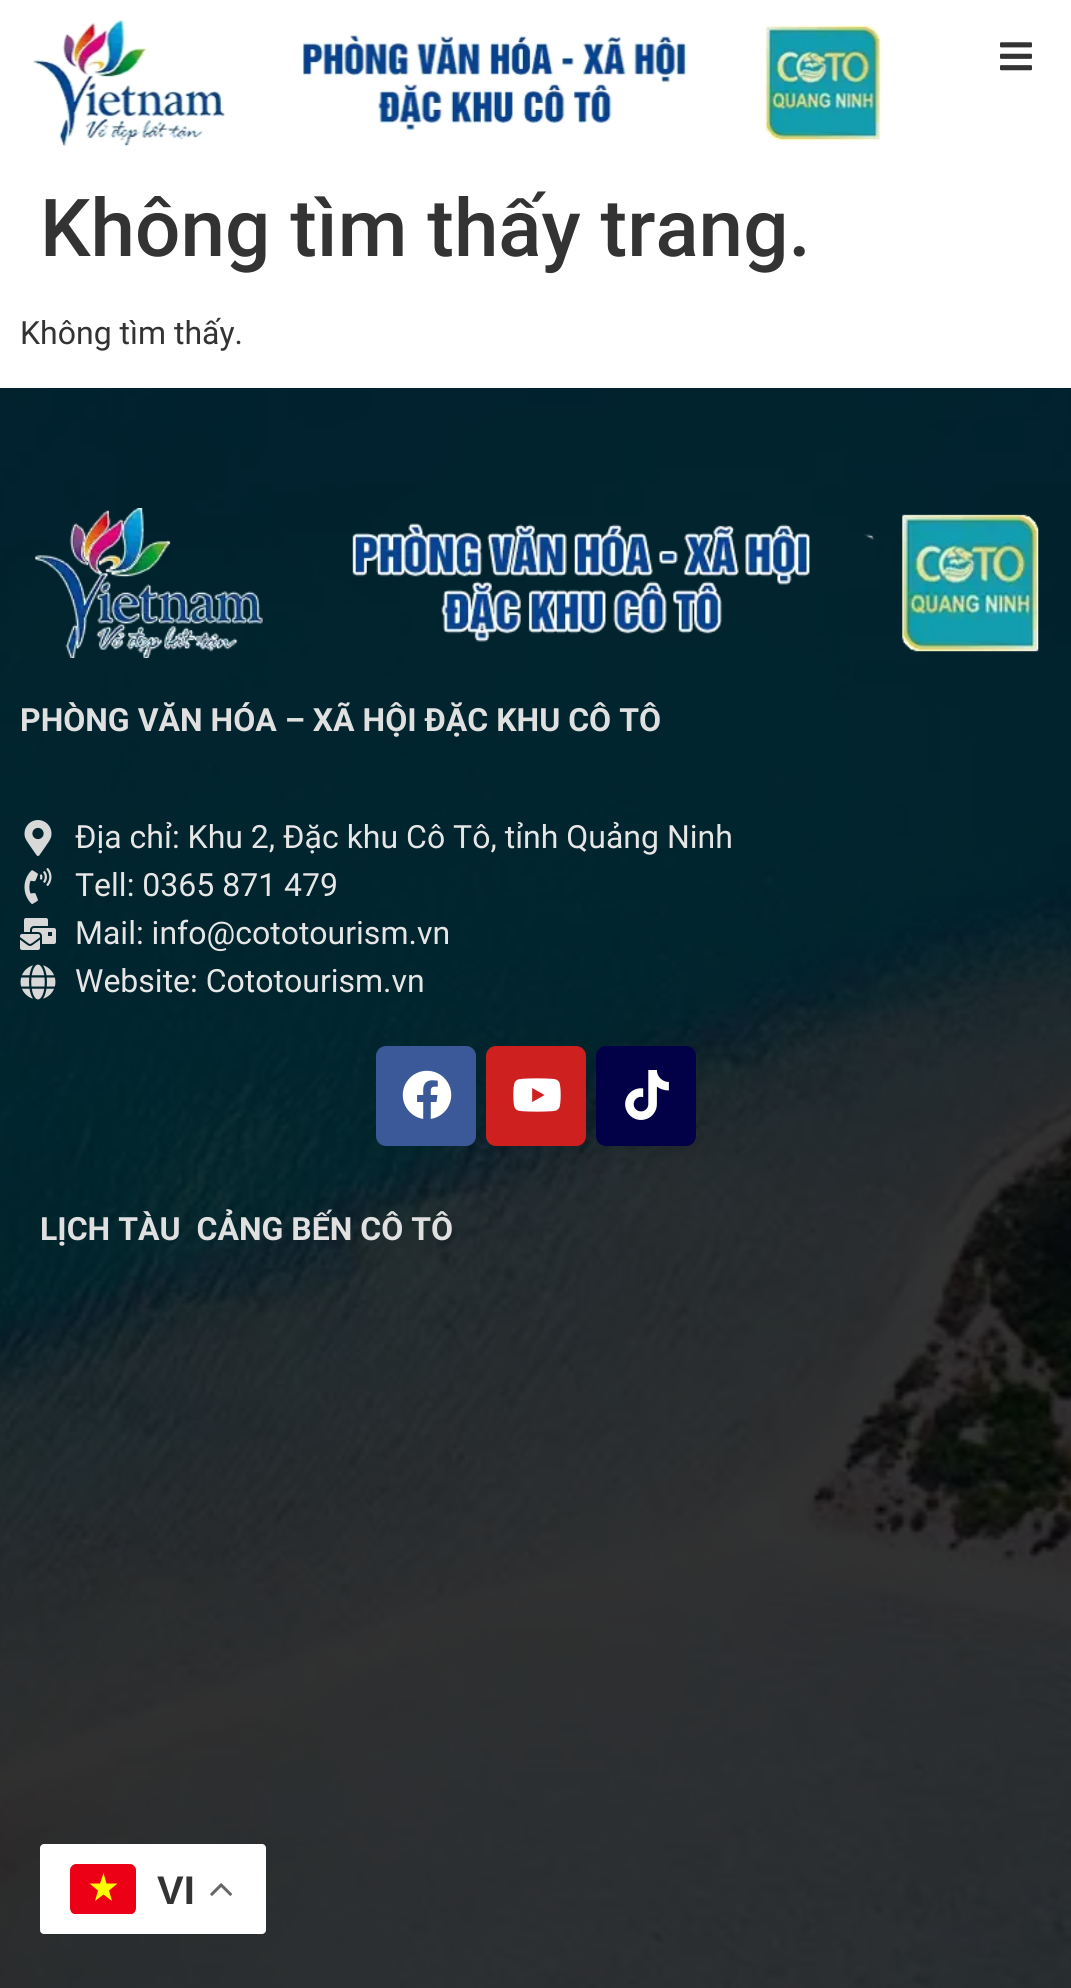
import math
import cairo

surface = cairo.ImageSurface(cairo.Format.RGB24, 1071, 1988)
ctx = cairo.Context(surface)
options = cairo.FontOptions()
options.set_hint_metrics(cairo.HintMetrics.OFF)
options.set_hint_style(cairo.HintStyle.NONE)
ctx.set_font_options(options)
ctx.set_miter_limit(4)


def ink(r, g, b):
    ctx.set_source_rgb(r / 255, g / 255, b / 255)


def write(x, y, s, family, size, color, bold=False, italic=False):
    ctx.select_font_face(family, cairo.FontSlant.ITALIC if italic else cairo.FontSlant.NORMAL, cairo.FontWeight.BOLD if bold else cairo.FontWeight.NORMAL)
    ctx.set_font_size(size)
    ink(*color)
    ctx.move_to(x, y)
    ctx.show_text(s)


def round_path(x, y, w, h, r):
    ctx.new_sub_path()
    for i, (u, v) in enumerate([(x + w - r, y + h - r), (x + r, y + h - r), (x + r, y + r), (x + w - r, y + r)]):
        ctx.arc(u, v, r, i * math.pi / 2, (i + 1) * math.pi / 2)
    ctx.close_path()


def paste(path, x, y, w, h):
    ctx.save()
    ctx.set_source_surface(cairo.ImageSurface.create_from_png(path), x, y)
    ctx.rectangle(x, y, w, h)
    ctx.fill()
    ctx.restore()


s1 = dict(family="Roboto Medium", size=80, color=(51, 51, 51))
s2 = dict(family="Roboto", size=32, color=(51, 51, 51))
s3 = dict(family="Roboto", size=32, color=(224, 224, 224), bold=True)
s4 = dict(family="Roboto", size=32, color=(230, 230, 230))
s5 = dict(family="Liberation Sans", size=40, color=(51, 51, 51), bold=True)

ink(255, 255, 255)
ctx.paint()
paste("pic1.png", 33, 20, 848, 127)
paste("pic2.png", 1000, 42, 32, 29)
write(40, 256, "Không tìm thấy trang.", **s1)
write(20, 344, "Không tìm thấy.", **s2)
paste("pic3.png", 0, 388, 1071, 1600)
paste("pic4.png", 35, 508, 1004, 150)
write(20, 731, "PHÒNG VĂN HÓA – XÃ HỘI ĐẶC KHU CÔ TÔ", **s3)
paste("pic5.png", 24, 820, 28, 36)
write(75, 848, "Địa chỉ: Khu 2, Đặc khu Cô Tô, tỉnh Quảng Ninh", **s4)
paste("pic6.png", 24, 868, 28, 36)
write(75, 896, "Tell: 0365 871 479", **s4)
paste("pic7.png", 20, 918, 36, 32)
write(75, 944, "Mail: info@cototourism.vn", **s4)
paste("pic8.png", 20, 964, 36, 36)
write(75, 992, "Website: Cototourism.vn", **s4)
ink(59, 89, 152)
round_path(376, 1046, 100, 100, 10)
ctx.fill()
paste("pic9.png", 402, 1070, 50, 49)
ink(205, 32, 31)
round_path(486, 1046, 100, 100, 10)
ctx.fill()
paste("pic10.png", 513, 1078, 48, 34)
ink(2, 0, 70)
round_path(596, 1046, 100, 100, 10)
ctx.fill()
paste("pic11.png", 625, 1070, 44, 50)
write(40, 1240, "LỊCH TÀU  CẢNG BẾN CÔ TÔ", **s3)
ink(255, 255, 255)
round_path(40, 1844, 226, 90, 4)
ctx.fill()
ink(236, 0, 21)
ctx.new_path()
ctx.move_to(76, 1864)
ctx.line_to(130, 1864)
ctx.curve_to(133, 1864, 136, 1867, 136, 1870)
ctx.line_to(136, 1908)
ctx.curve_to(136, 1910, 135, 1913, 132, 1914)
ctx.line_to(74, 1914)
ctx.curve_to(71, 1913, 70, 1910, 70, 1908)
ctx.line_to(70, 1870)
ctx.curve_to(70, 1867, 73, 1864, 76, 1864)
ctx.close_path()
ctx.fill()
ink(255, 255, 0)
ctx.set_fill_rule(cairo.FillRule.EVEN_ODD)
ctx.new_path()
ctx.move_to(112, 1901)
ctx.line_to(103.5, 1894.5)
ctx.line_to(95, 1901)
ctx.line_to(98, 1890.5)
ctx.line_to(89.5, 1883.5)
ctx.line_to(100, 1883.5)
ctx.line_to(103.5, 1873)
ctx.line_to(106.5, 1883.5)
ctx.line_to(117.5, 1883.5)
ctx.line_to(109, 1890.5)
ctx.close_path()
ctx.fill()
write(157, 1904, "VI", **s5)
paste("pic12.png", 210, 1883, 22, 13)
surface.write_to_png("screenshot.png")
